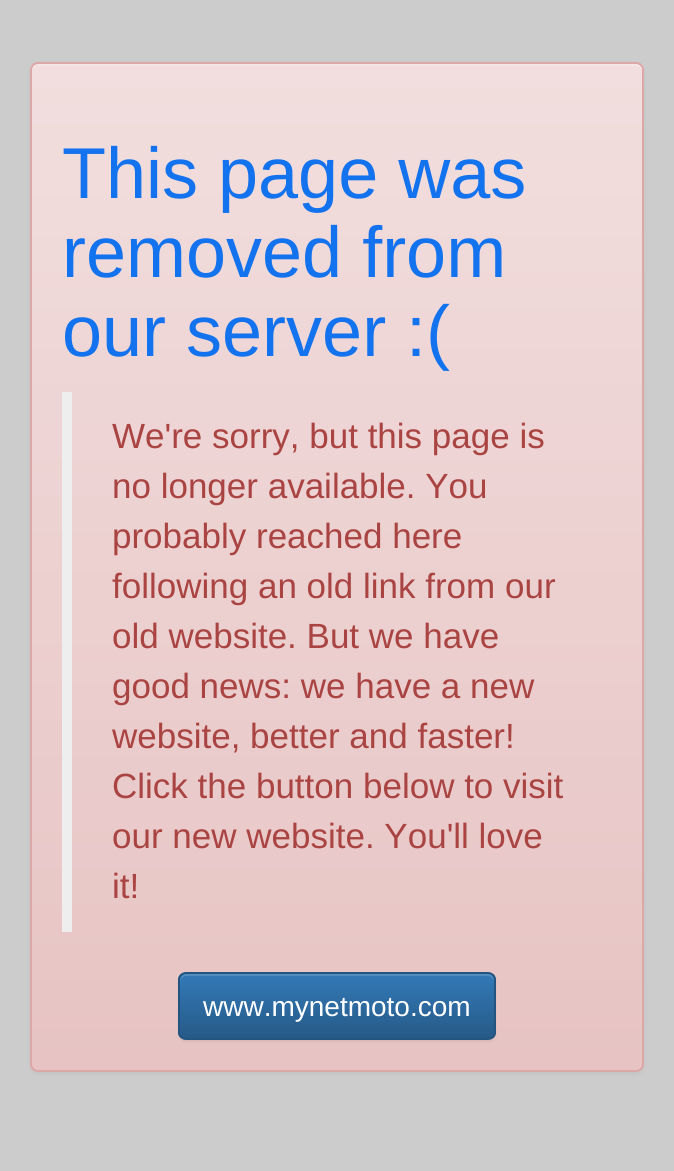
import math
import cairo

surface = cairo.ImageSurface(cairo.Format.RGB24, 674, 1171)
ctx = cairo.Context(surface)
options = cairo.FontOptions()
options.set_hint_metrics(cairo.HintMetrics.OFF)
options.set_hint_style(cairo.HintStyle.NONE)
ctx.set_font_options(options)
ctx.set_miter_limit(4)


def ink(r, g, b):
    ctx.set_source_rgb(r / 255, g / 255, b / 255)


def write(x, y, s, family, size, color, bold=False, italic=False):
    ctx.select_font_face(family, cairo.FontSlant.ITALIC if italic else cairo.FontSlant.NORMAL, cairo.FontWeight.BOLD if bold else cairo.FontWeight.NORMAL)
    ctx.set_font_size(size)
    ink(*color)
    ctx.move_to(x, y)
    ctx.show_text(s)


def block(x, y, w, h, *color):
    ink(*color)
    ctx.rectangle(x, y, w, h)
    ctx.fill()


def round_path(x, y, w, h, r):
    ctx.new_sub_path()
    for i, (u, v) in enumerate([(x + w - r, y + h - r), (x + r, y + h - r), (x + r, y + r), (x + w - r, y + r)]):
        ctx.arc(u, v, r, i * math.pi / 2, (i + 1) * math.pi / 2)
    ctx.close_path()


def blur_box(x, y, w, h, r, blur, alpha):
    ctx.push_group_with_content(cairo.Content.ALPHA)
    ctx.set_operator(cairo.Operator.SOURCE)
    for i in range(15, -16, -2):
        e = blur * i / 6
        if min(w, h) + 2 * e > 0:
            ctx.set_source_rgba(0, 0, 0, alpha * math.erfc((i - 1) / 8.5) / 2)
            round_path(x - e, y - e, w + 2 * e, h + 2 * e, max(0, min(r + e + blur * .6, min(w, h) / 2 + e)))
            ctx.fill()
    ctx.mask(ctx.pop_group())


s1 = dict(family="Liberation Sans", size=72, color=(19, 115, 238))
s2 = dict(family="Liberation Sans", size=35, color=(169, 68, 66))
s3 = dict(family="Liberation Sans", size=28, color=(255, 255, 255))

ink(204, 204, 204)
ctx.paint()
ink(0, 0, 0)
blur_box(30, 64, 614, 1010, 8, 2, 0.05)
ctx.save()
round_path(30, 62, 614, 1010, 8)
ctx.clip()
gradient = cairo.LinearGradient(337, 64, 337, 1070)
gradient.add_color_stop_rgba(0, 0.949, 0.871, 0.871, 1)
gradient.add_color_stop_rgba(1, 0.906, 0.765, 0.765, 1)
ctx.set_source(gradient)
ctx.rectangle(30, 64, 614, 1006)
ctx.fill()
ctx.restore()
ink(245, 230, 230)
ctx.new_path()
ctx.move_to(38, 66)
ctx.line_to(636, 66)
ctx.curve_to(639, 66, 642, 69, 642, 72)
ctx.line_to(642, 70)
ctx.curve_to(642, 67, 639, 64, 636, 64)
ctx.line_to(38, 64)
ctx.curve_to(35, 64, 32, 67, 32, 70)
ctx.line_to(32, 72)
ctx.curve_to(32, 69, 35, 66, 38, 66)
ctx.close_path()
ctx.fill()
round_path(31, 63, 612, 1008, 7)
ink(220, 167, 167)
ctx.stroke()
write(62, 198, "This page was", **s1)
write(62, 277, "removed from", **s1)
write(62, 356, "our server :(", **s1)
block(62, 392, 10, 540, 238, 238, 238)
write(112, 448, "We're sorry, but this page is", **s2)
write(112, 498, "no longer available. You", **s2)
write(112, 548, "probably reached here", **s2)
write(112, 598, "following an old link from our", **s2)
write(112, 648, "old website. But we have", **s2)
write(112, 698, "good news: we have a new", **s2)
write(112, 748, "website, better and faster!", **s2)
write(112, 798, "Click the button below to visit", **s2)
write(112, 848, "our new website. You'll love", **s2)
write(112, 898, "it!", **s2)
ink(0, 0, 0)
blur_box(178, 974, 318, 68, 8, 1, 0.07)
ctx.save()
round_path(178, 972, 318, 68, 8)
ctx.clip()
gradient = cairo.LinearGradient(337, 974, 337, 1038)
gradient.add_color_stop_rgba(0, 0.2, 0.478, 0.718, 1)
gradient.add_color_stop_rgba(1, 0.149, 0.353, 0.533, 1)
ctx.set_source(gradient)
ctx.rectangle(178, 974, 318, 64)
ctx.fill()
ctx.restore()
ctx.set_source_rgba(1, 1, 1, 0.15)
ctx.new_path()
ctx.move_to(186, 976)
ctx.line_to(488, 976)
ctx.curve_to(491, 976, 494, 979, 494, 982)
ctx.curve_to(494, 978, 493, 974, 488, 974)
ctx.line_to(185, 974)
ctx.curve_to(181, 975, 180, 979, 180, 982)
ctx.curve_to(180, 979, 183, 976, 186, 976)
ctx.close_path()
ctx.fill()
round_path(179, 973, 316, 66, 7)
ink(36, 85, 128)
ctx.stroke()
write(203, 1016, "www.mynetmoto.com", **s3)
surface.write_to_png("screenshot.png")
